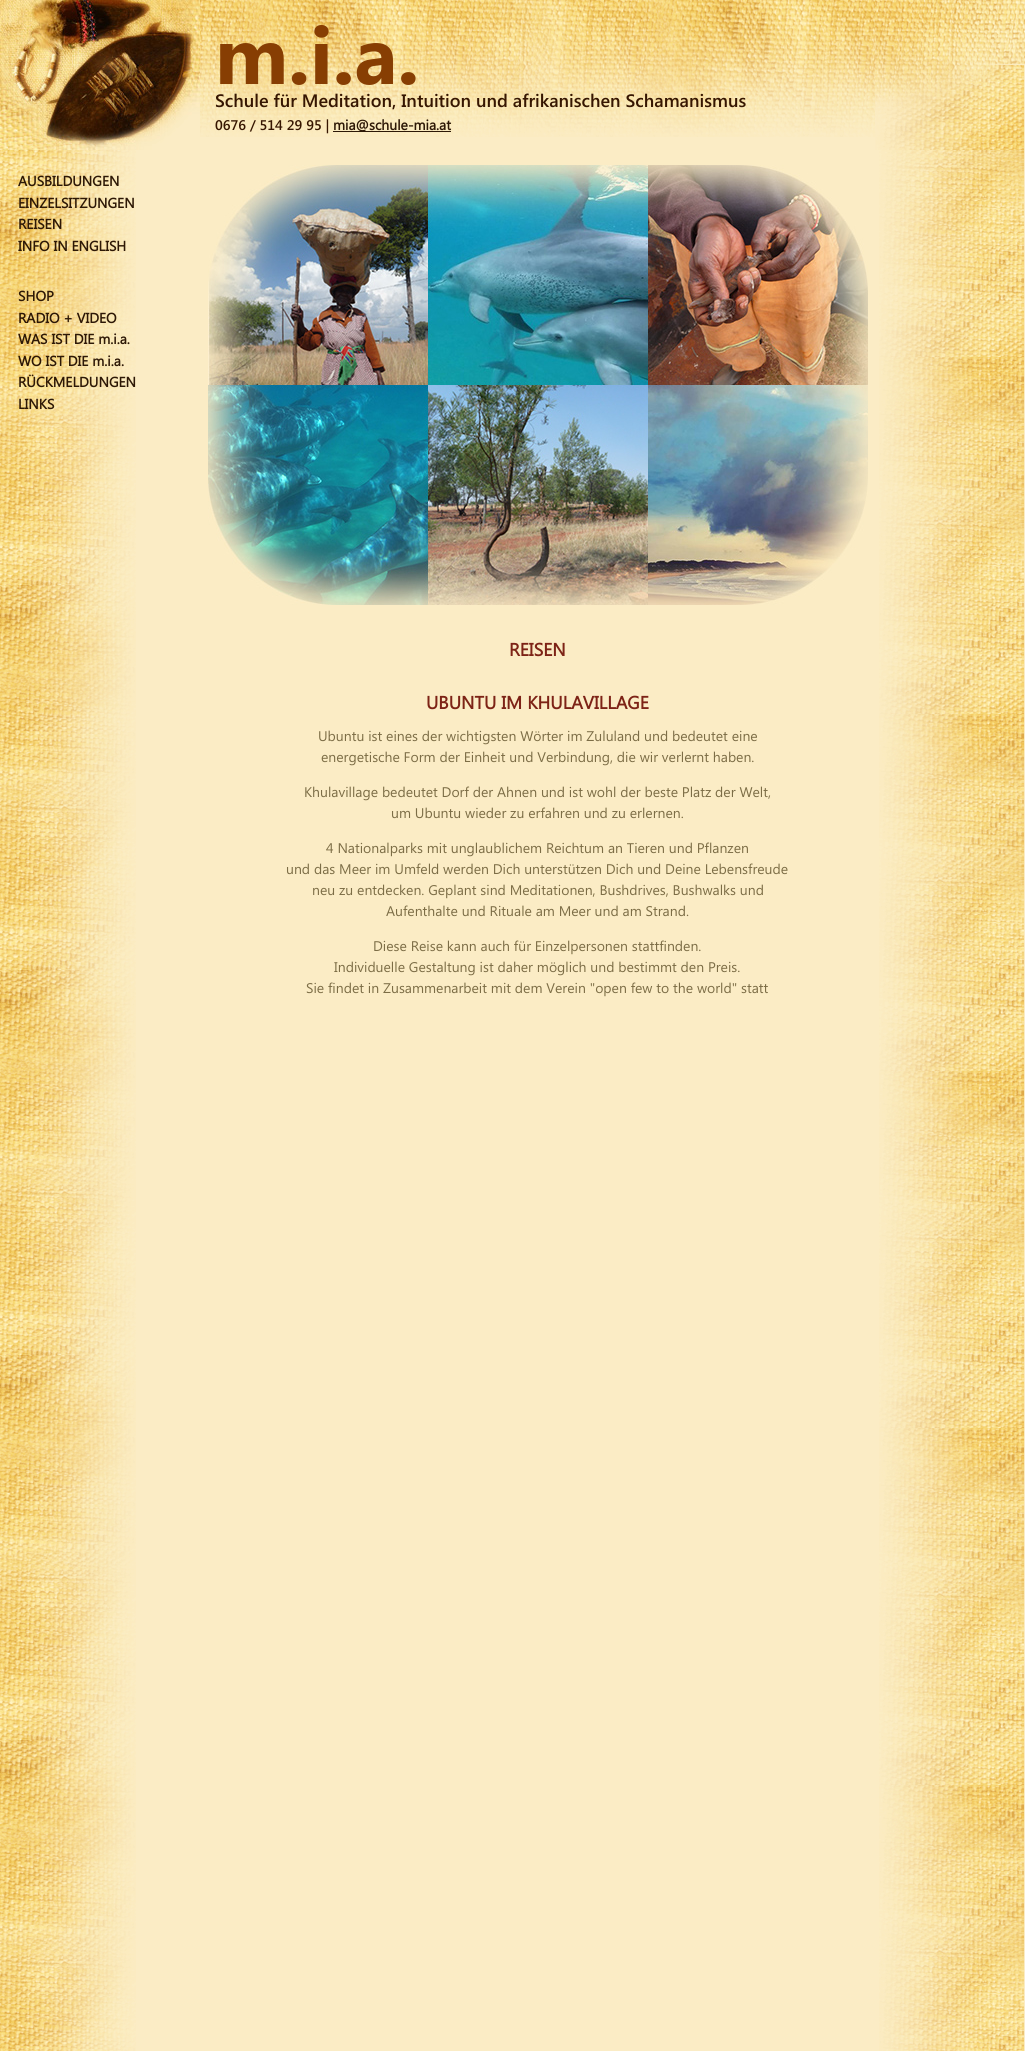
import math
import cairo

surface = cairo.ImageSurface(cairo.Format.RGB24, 1025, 2051)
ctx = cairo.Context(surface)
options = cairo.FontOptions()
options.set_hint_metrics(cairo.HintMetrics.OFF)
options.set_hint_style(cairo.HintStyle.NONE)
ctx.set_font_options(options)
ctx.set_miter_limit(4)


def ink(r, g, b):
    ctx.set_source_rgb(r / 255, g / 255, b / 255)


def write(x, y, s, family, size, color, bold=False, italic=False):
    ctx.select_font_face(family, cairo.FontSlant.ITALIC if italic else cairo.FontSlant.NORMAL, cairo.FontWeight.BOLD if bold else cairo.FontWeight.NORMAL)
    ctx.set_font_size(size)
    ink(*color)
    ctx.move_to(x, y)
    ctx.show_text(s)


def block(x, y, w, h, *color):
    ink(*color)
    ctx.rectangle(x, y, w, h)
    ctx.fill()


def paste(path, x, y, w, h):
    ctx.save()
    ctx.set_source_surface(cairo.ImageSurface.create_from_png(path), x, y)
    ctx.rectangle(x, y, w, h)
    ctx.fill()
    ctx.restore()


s1 = dict(family="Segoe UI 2", size=80, color=(135, 62, 3), bold=True)
s2 = dict(family="Segoe UI SemiBold", size=18, color=(54, 22, 1))
s3 = dict(family="Segoe UI SemiBold", size=14, color=(54, 22, 1))
s4 = dict(family="Segoe UI", size=14, color=(45, 24, 6), bold=True)
s5 = dict(family="Segoe UI", size=18, color=(125, 35, 22), bold=True)
s6 = dict(family="Segoe UI", size=14, color=(124, 109, 70))

ink(251, 236, 197)
ctx.paint()
paste("pic1.png", 200, 0, 675, 137)
write(215, 84, "m.i.a.", **s1)
write(215, 107, "Schule für Meditation, Intuition und afrikanischen Schamanismus", **s2)
write(215, 130, "0676 / 514 29 95 |", **s3)
block(333, 131, 118, 1, 45, 24, 6)
write(333, 130, "mia@schule-mia.at", **s4)
paste("pic2.png", 879, 150, 145, 1901)
paste("pic3.png", 875, 0, 150, 150)
paste("pic4.png", 0, 150, 136, 1901)
paste("pic5.png", 0, 0, 200, 150)
write(18, 186, "AUSBILDUNGEN", **s4)
write(18, 208, "EINZELSITZUNGEN", **s4)
write(18, 229, "REISEN", **s4)
write(18, 251, "INFO IN ENGLISH", **s4)
write(18, 301, "SHOP", **s4)
write(18, 323, "RADIO + VIDEO", **s4)
write(18, 344, "WAS IST DIE m.i.a.", **s4)
write(18, 366, "WO IST DIE m.i.a.", **s4)
write(18, 387, "RÜCKMELDUNGEN", **s4)
write(18, 409, "LINKS", **s4)
paste("pic6.png", 208, 165, 660, 440)
write(509, 656, "REISEN", **s5)
write(426, 709, "UBUNTU IM KHULAVILLAGE", **s5)
write(318, 741, "Ubuntu ist eines der wichtigsten Wörter im Zululand und bedeutet eine", **s6)
write(321, 762, "energetische Form der Einheit und Verbindung, die wir verlernt haben.", **s6)
write(304, 797, "Khulavillage bedeutet Dorf der Ahnen und ist wohl der beste Platz der Welt,", **s6)
write(391, 818, "um Ubuntu wieder zu erfahren und zu erlernen.", **s6)
write(326, 853, "4 Nationalparks mit unglaublichem Reichtum an Tieren und Pflanzen", **s6)
write(286, 874, "und das Meer im Umfeld werden Dich unterstützen Dich und Deine Lebensfreude", **s6)
write(312, 895, "neu zu entdecken. Geplant sind Meditationen, Bushdrives, Bushwalks und", **s6)
write(386, 916, "Aufenthalte und Rituale am Meer und am Strand.", **s6)
write(373, 951, "Diese Reise kann auch für Einzelpersonen stattfinden.", **s6)
write(334, 972, "Individuelle Gestaltung ist daher möglich und bestimmt den Preis.", **s6)
write(306, 993, "Sie findet in Zusammenarbeit mit dem Verein \"open few to the world\" statt", **s6)
surface.write_to_png("screenshot.png")
